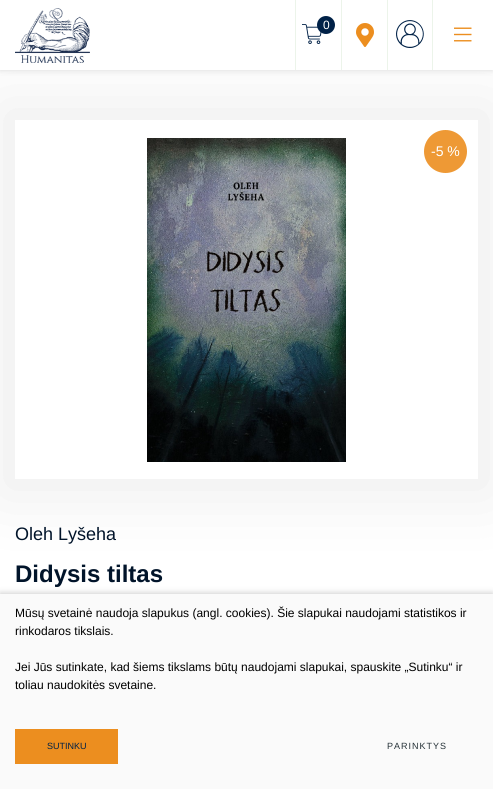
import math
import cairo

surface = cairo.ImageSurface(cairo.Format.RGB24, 493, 789)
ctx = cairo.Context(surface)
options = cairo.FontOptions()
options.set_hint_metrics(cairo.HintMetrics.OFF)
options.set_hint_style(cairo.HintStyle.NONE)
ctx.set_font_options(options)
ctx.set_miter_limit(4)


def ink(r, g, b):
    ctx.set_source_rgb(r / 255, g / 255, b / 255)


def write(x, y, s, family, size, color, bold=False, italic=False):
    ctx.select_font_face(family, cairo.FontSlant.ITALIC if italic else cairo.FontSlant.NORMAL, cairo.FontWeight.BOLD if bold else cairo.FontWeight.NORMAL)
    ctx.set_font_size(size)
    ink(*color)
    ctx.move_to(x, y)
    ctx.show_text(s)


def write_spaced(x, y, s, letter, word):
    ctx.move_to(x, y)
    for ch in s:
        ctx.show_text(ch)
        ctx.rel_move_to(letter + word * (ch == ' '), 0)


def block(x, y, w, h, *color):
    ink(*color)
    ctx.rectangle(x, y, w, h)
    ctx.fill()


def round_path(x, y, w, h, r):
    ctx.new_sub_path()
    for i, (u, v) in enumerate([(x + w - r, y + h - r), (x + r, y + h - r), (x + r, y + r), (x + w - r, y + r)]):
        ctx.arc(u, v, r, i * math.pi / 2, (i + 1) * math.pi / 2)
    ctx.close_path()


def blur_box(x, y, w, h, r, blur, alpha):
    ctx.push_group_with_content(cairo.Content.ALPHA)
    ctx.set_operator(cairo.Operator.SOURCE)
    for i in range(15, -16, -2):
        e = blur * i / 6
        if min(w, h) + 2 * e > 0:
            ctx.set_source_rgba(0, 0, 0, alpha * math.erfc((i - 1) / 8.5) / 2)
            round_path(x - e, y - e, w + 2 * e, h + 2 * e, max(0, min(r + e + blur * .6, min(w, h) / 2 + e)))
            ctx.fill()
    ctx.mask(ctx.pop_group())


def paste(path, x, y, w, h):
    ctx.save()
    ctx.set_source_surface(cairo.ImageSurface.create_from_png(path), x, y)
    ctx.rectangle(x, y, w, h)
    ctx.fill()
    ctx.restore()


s1 = dict(family="Arimo", size=12, color=(255, 255, 255))
s2 = dict(family="Arimo", size=14, color=(255, 255, 255))
s3 = dict(family="Arimo", size=18, color=(1, 20, 42))
s4 = dict(family="Arimo", size=24, color=(1, 20, 42), bold=True)
s5 = dict(family="Arimo", size=12, color=(0, 0, 0))
s6 = dict(family="Arimo", size=9, color=(0, 33, 71))

ink(255, 255, 255)
ctx.paint()
ink(0, 0, 0)
blur_box(0, 0, 493, 70, 0, 3.5, 0.15)
ctx.save()
ctx.set_fill_rule(cairo.FillRule.EVEN_ODD)
ctx.new_path()
ctx.move_to(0, 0)
ctx.line_to(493, 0)
ctx.line_to(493, 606)
ctx.line_to(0, 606)
ctx.close_path()
ctx.move_to(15, 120)
ctx.line_to(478, 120)
ctx.line_to(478, 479)
ctx.line_to(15, 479)
ctx.close_path()
ctx.clip()
blur_box(-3, 102, 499, 395, 0, 36, 0.07)
ctx.restore()
block(0, 0, 493, 70, 255, 255, 255)
paste("pic1.png", 15, 8, 75, 55)
paste("pic2.png", 454, 27, 18, 15)
block(295, 0, 1, 70, 236, 244, 234)
block(341, 0, 1, 70, 236, 244, 234)
paste("pic3.png", 302, 24, 20, 20)
ink(0, 33, 71)
ctx.arc(326, 25, 9, 0, 2 * math.pi)
ctx.fill()
write(323, 29, "0", **s1)
block(387, 0, 1, 70, 236, 244, 234)
paste("pic4.png", 356, 23, 18, 24)
block(432, 0, 1, 70, 236, 244, 234)
paste("pic5.png", 396, 20, 28, 28)
paste("pic6.png", 147, 138, 199, 324)
ink(238, 153, 53)
ctx.arc(445.5, 151.5, 21.5, 0, 2 * math.pi)
ctx.fill()
write(431, 156, "-5 %", **s2)
write(15, 540, "Oleh Lyšeha", **s3)
write(15, 582, "Didysis tiltas", **s4)
ink(0, 0, 0)
blur_box(0, 594, 493, 195, 0, 3.5, 0.25)
block(0, 594, 493, 195, 250, 250, 250)
write(15, 617, "Mūsų svetainė naudoja slapukus (angl. cookies). Šie slapukai naudojami statistikos ir", **s5)
write(15, 635, "rinkodaros tikslais.", **s5)
write(15, 671, "Jei Jūs sutinkate, kad šiems tikslams būtų naudojami slapukai, spauskite „Sutinku“ ir", **s5)
write(15, 689, "toliau naudokitės svetaine.", **s5)
block(15, 729, 103, 35, 236, 142, 31)
write(47, 749, "SUTINKU", **s6)
ink(38, 50, 56)
write_spaced(387, 749, "PARINKTYS", 1, 0)
surface.write_to_png("screenshot.png")
